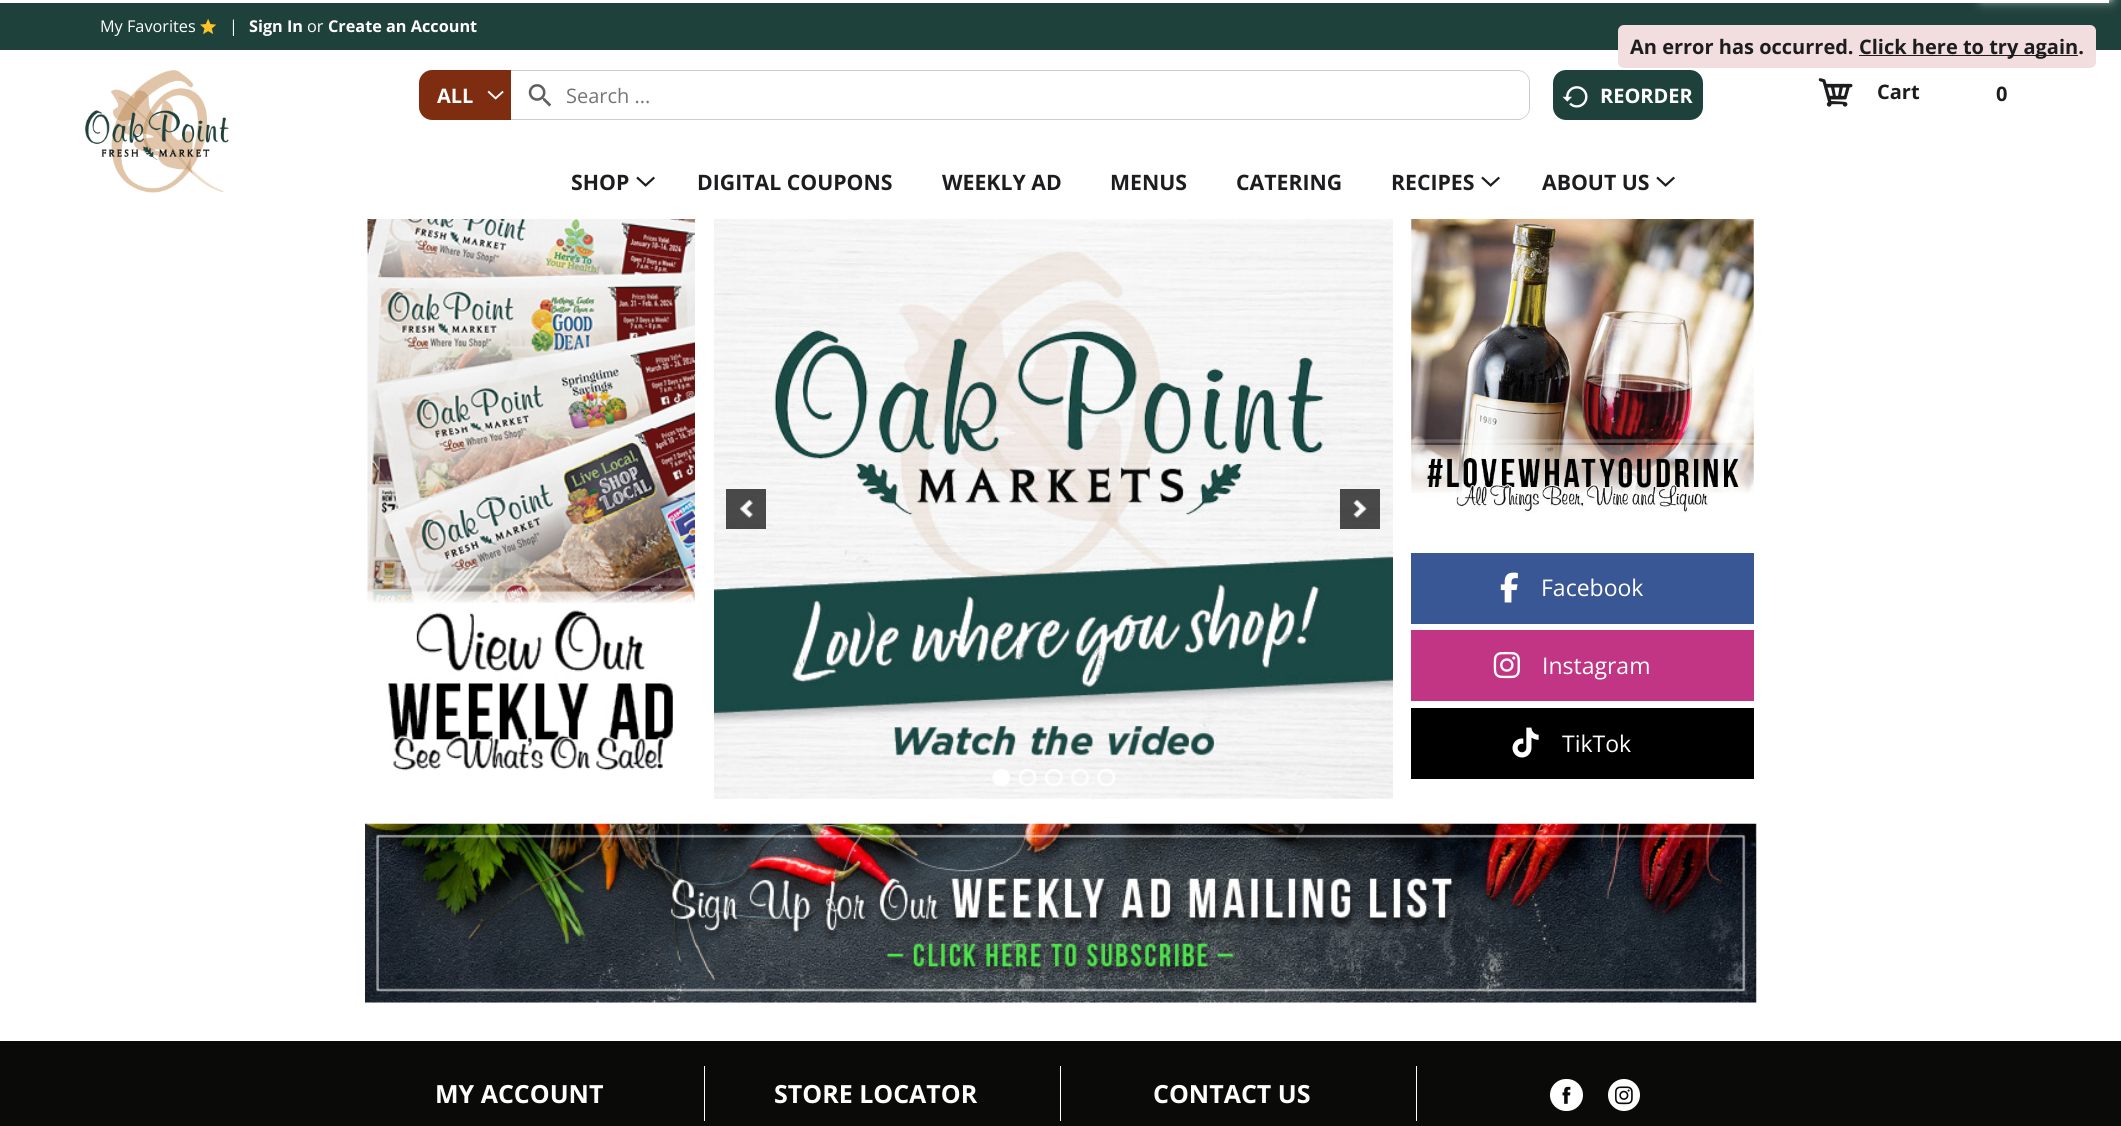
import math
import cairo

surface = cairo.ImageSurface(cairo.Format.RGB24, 2121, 1126)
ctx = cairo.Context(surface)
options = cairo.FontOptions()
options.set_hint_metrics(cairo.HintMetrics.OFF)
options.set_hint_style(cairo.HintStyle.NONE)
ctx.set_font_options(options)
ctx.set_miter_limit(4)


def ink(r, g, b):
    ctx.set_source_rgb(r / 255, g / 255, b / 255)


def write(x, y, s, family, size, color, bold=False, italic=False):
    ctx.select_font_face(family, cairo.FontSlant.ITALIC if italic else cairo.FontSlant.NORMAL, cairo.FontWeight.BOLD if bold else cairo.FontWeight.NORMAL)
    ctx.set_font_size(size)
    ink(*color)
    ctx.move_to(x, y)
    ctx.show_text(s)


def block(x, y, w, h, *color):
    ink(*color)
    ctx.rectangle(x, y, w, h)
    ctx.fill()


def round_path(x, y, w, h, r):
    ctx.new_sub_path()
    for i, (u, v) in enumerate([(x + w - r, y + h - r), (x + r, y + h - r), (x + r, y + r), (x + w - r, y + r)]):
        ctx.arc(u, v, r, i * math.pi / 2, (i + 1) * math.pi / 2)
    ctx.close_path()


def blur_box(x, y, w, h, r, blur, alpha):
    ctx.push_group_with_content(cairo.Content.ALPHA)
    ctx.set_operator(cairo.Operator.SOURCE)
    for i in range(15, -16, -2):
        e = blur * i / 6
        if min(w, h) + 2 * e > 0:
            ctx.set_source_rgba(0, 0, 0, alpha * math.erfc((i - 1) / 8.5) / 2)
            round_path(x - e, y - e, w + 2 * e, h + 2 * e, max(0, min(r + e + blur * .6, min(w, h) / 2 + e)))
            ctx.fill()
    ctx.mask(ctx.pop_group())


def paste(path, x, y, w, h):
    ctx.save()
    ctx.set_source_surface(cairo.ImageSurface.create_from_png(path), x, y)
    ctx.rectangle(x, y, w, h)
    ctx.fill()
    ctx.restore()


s1 = dict(family="Open Sans", size=16.25, color=(255, 255, 255))
s2 = dict(family="Open Sans", size=16.25, color=(255, 255, 255), bold=True)
s3 = dict(family="Open Sans", size=20, color=(255, 255, 255), bold=True)
s4 = dict(family="Open Sans", size=20, color=(117, 117, 117))
s5 = dict(family="Open Sans", size=20, color=(29, 29, 31), bold=True)
s6 = dict(family="Open Sans", size=21.25, color=(29, 29, 31), bold=True)
s7 = dict(family="Open Sans", size=23, color=(255, 255, 255))
s8 = dict(family="Open Sans", size=25, color=(255, 255, 255), bold=True)

ink(255, 255, 255)
ctx.paint()
block(0, 0, 2121, 50, 31, 65, 60)
write(100, 32, "My Favorites", **s1)
paste("pic1.png", 200, 18, 17, 16)
write(229, 32, "|", **s1)
write(249, 32, "Sign In", **s2)
write(307, 32, "or", **s1)
write(328, 32, "Create an Account", **s2)
paste("pic2.png", 85, 70, 144, 123)
ink(126, 45, 16)
ctx.new_path()
ctx.move_to(432, 70)
ctx.line_to(511, 70)
ctx.line_to(511, 120)
ctx.line_to(432, 120)
ctx.curve_to(425, 120, 419, 114, 419, 107)
ctx.line_to(419, 83)
ctx.curve_to(419, 76, 425, 70, 432, 70)
ctx.close_path()
ctx.fill()
write(437, 103, "ALL", **s3)
paste("pic3.png", 487, 90, 17, 10)
ink(204, 204, 204)
ctx.set_fill_rule(cairo.FillRule.EVEN_ODD)
ctx.new_path()
ctx.move_to(511, 70)
ctx.line_to(1518, 70)
ctx.curve_to(1524, 70, 1530, 76, 1530, 82)
ctx.line_to(1530, 108)
ctx.curve_to(1530, 114, 1524, 120, 1518, 120)
ctx.line_to(511, 120)
ctx.close_path()
ctx.move_to(511, 71)
ctx.line_to(1518, 71)
ctx.curve_to(1524, 71, 1529, 76, 1529, 82)
ctx.line_to(1529, 108)
ctx.curve_to(1529, 114, 1524, 119, 1518, 119)
ctx.line_to(511, 119)
ctx.close_path()
ctx.fill()
paste("pic4.png", 528, 84, 24, 23)
write(566, 103, "Search ...", **s4)
ink(31, 65, 60)
round_path(1553, 70, 150, 50, 13)
ctx.fill()
paste("pic5.png", 1562, 86, 26, 22)
write(1600, 103, "REORDER", **s3)
paste("pic6.png", 1818, 78, 35, 29)
write(1877, 99, "Cart", **s5)
write(1996, 101, "0", **s5)
write(571, 190, "SHOP", **s6)
paste("pic7.png", 636, 176, 19, 11)
write(697, 190, "DIGITAL COUPONS", **s6)
write(942, 190, "WEEKLY AD", **s6)
write(1110, 190, "MENUS", **s6)
write(1236, 190, "CATERING", **s6)
write(1391, 190, "RECIPES", **s6)
paste("pic7.png", 1481, 176, 19, 11)
write(1542, 190, "ABOUT US", **s6)
paste("pic7.png", 1656, 176, 19, 11)
paste("pic8.png", 367, 219, 328, 552)
paste("pic9.png", 714, 219, 679, 580)
ctx.set_source_rgba(0, 0, 0, 0.7)
ctx.rectangle(726, 489, 40, 40)
ctx.fill()
paste("pic10.png", 740, 500, 13, 18)
ctx.rectangle(1340, 489, 40, 40)
ctx.fill()
paste("pic11.png", 1353, 500, 14, 18)
paste("pic12.png", 992, 769, 18, 17)
paste("pic13.png", 1019, 769, 18, 17)
paste("pic14.png", 1045, 769, 18, 17)
paste("pic15.png", 1071, 769, 18, 17)
paste("pic16.png", 1097, 768, 18, 18)
paste("pic17.png", 1411, 219, 343, 295)
block(1411, 553, 343, 71, 58, 87, 149)
paste("pic18.png", 1500, 572, 18, 31)
write(1541, 596, "Facebook", **s7)
block(1411, 630, 343, 71, 193, 53, 132)
paste("pic19.png", 1493, 651, 27, 28)
write(1542, 674, "Instagram", **s7)
block(1411, 708, 343, 71, 0, 0, 0)
paste("pic20.png", 1512, 727, 27, 31)
write(1562, 752, "TikTok", **s7)
paste("pic21.png", 365, 823, 1392, 181)
block(0, 1041, 2121, 85, 10, 11, 9)
block(704, 1066, 1, 55, 255, 255, 255)
write(435, 1103, "MY ACCOUNT", **s8)
block(1060, 1066, 1, 55, 255, 255, 255)
write(774, 1103, "STORE LOCATOR", **s8)
block(1416, 1066, 1, 55, 255, 255, 255)
write(1153, 1103, "CONTACT US", **s8)
round_path(1550, 1079, 33, 32, 16)
ctx.fill()
paste("pic22.png", 1562, 1086, 9, 18)
ctx.arc(1624, 1095, 16, 0, 2 * math.pi)
ctx.fill()
paste("pic23.png", 1615, 1086, 18, 19)
block(0, 0, 2109, 3, 255, 255, 255)
ink(255, 255, 255)
blur_box(1984, -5, 125, 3, 0, 3, 1)
blur_box(1984, -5, 125, 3, 0, 6.5, 1)
ink(242, 222, 222)
round_path(1618, 25, 478, 43, 6)
ctx.fill()
write(1630, 54, "An error has occurred.", **s5)
block(1859, 55, 219, 1, 29, 29, 31)
write(1859, 54, "Click here to try again.", **s5)
surface.write_to_png("screenshot.png")
